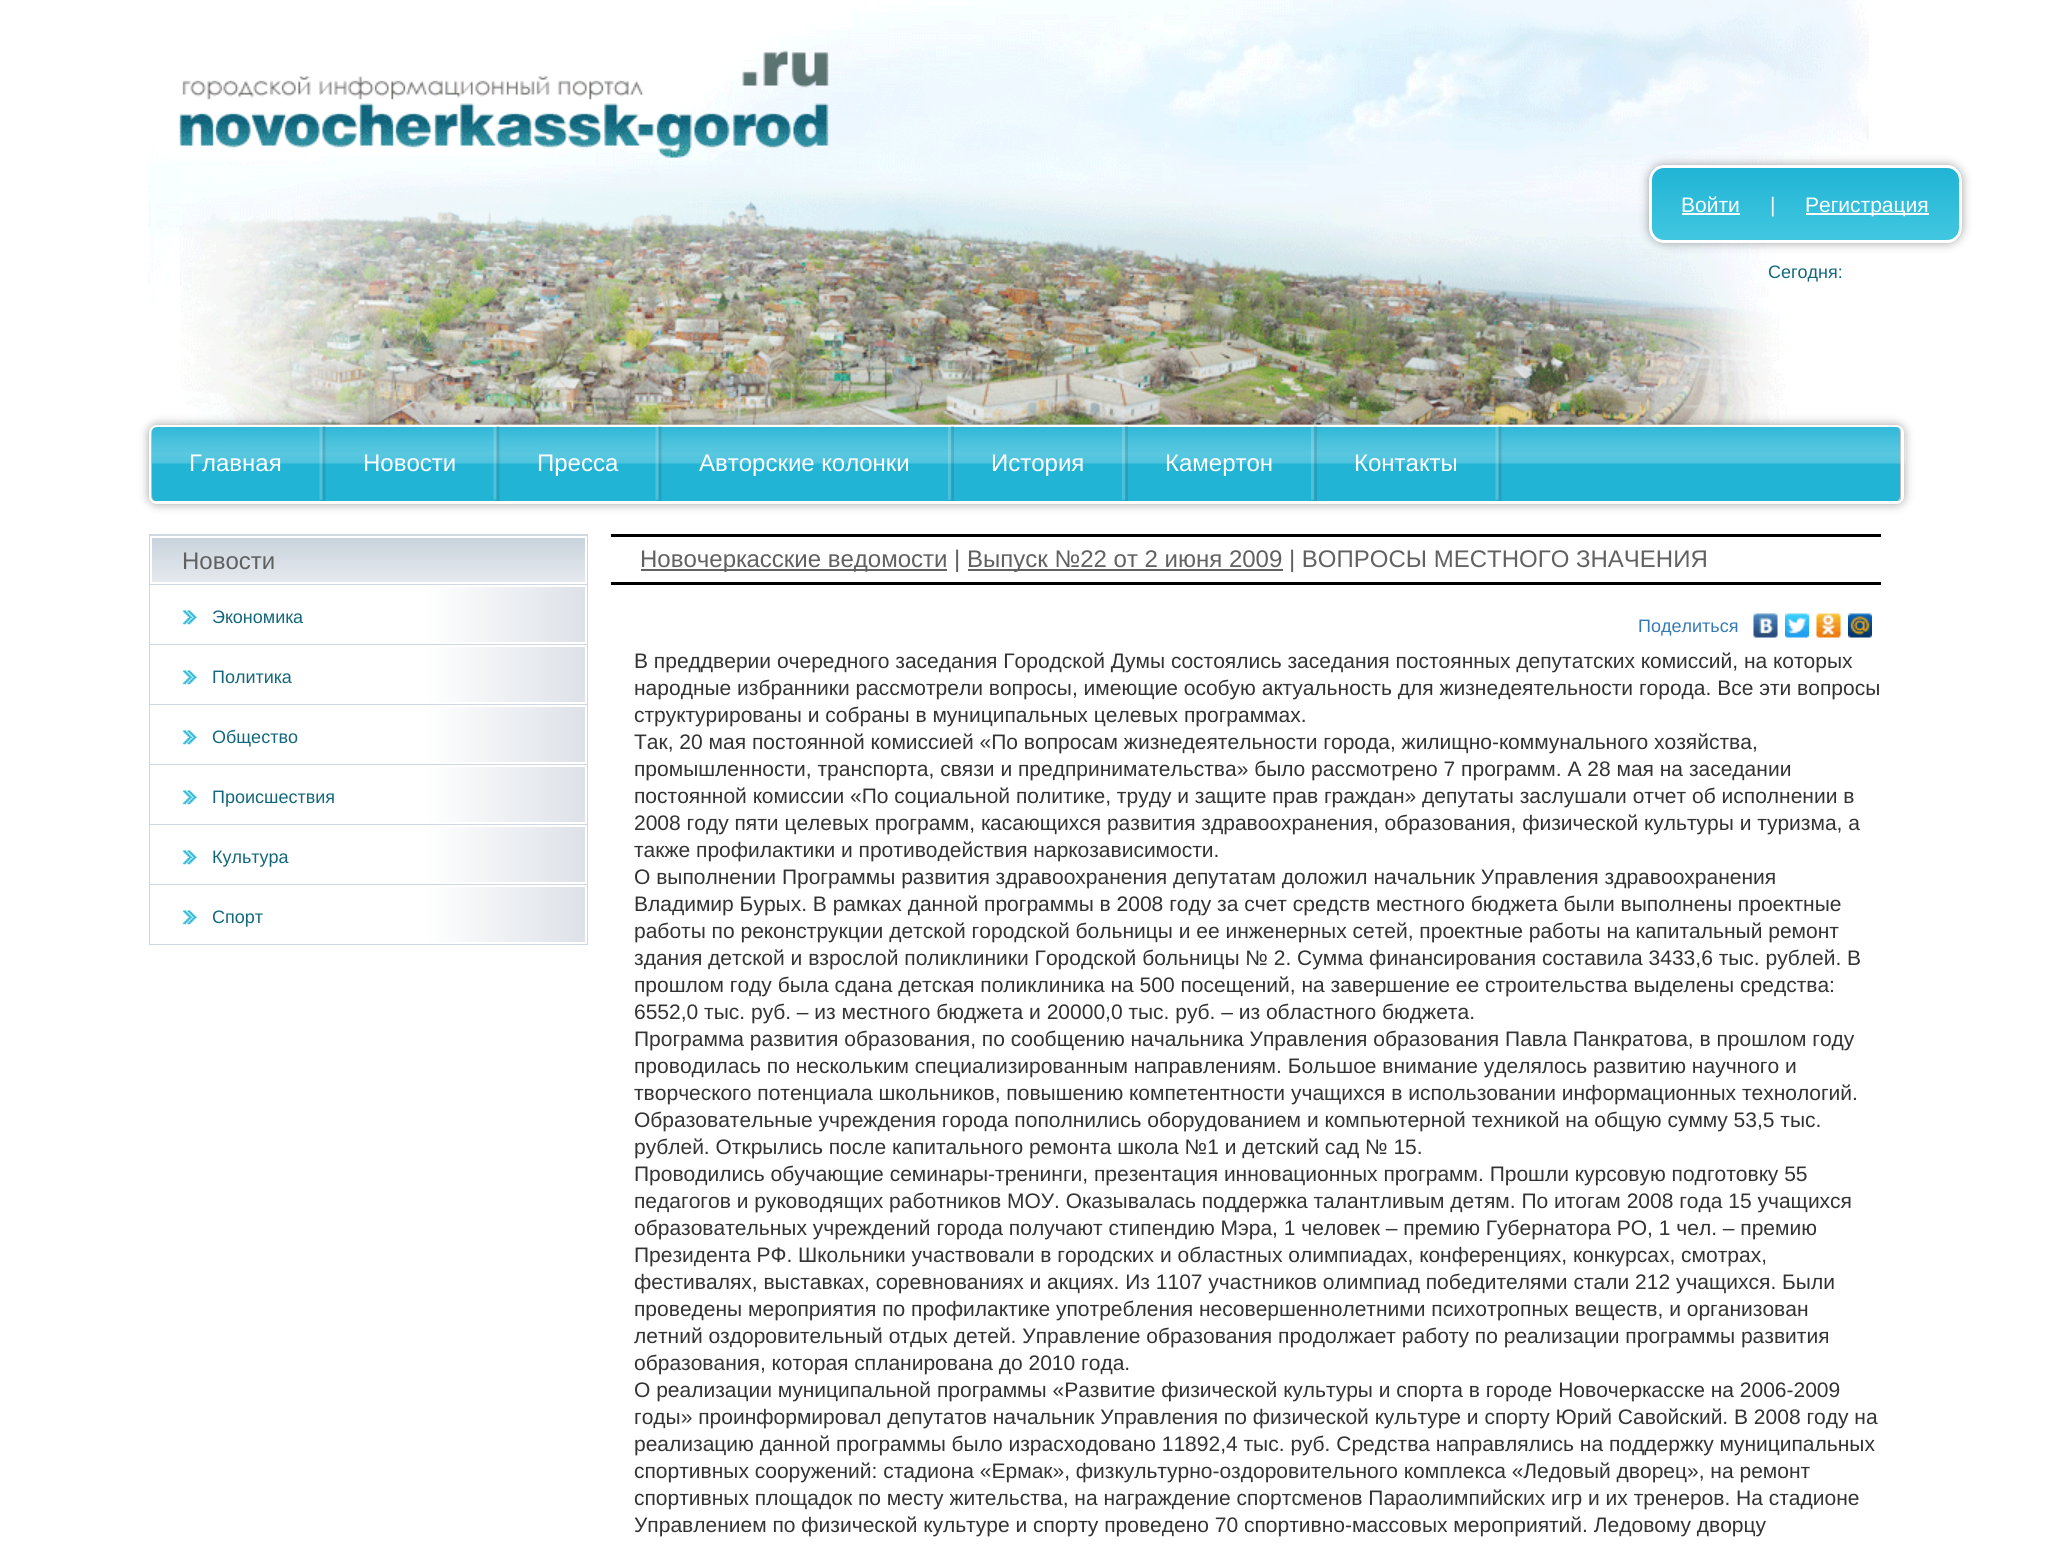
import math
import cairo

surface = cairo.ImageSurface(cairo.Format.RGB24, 2052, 1549)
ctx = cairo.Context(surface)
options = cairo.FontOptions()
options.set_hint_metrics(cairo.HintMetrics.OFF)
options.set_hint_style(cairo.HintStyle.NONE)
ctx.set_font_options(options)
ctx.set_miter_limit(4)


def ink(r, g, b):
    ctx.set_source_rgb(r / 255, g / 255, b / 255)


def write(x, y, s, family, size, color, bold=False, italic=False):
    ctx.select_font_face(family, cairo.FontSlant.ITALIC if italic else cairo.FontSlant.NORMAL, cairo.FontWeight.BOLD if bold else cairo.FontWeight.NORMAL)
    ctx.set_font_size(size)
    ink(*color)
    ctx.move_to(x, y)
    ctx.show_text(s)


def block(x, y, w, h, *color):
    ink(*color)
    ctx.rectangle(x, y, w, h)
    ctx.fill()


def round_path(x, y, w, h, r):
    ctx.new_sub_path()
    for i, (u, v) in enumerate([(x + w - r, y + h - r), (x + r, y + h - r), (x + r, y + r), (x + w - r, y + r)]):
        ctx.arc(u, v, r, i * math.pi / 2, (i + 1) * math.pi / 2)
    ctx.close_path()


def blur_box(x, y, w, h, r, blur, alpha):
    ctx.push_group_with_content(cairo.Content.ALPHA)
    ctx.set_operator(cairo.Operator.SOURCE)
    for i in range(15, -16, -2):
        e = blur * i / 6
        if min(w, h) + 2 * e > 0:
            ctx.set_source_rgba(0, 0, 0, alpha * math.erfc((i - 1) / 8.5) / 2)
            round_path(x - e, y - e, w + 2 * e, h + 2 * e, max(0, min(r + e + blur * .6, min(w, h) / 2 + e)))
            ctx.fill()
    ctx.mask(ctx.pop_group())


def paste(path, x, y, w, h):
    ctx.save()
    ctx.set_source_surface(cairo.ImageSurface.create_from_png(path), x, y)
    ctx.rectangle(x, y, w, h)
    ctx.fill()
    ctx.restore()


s1 = dict(family="Liberation Sans", size=21, color=(255, 255, 255))
s2 = dict(family="Liberation Sans", size=18, color=(19, 103, 124))
s3 = dict(family="Liberation Sans", size=24, color=(255, 255, 255))
s4 = dict(family="Liberation Sans", size=24, color=(97, 97, 97))
s5 = dict(family="Liberation Sans", size=18, color=(51, 122, 183))
s6 = dict(family="Liberation Sans", size=21, color=(51, 51, 51))

ink(255, 255, 255)
ctx.paint()
paste("pic1.png", 148, 0, 1721, 425)
ink(0, 0, 0)
blur_box(1649, 165, 313, 78, 15, 5, 0.37)
ctx.save()
round_path(1649, 165, 313, 78, 15)
ctx.clip()
gradient = cairo.LinearGradient(1805, 168, 1805, 240)
gradient.add_color_stop_rgba(0, 0.129, 0.706, 0.835, 1)
gradient.add_color_stop_rgba(1, 0.255, 0.78, 0.878, 1)
ctx.set_source(gradient)
ctx.rectangle(1649, 168, 313, 72)
ctx.fill()
ctx.restore()
round_path(1650.5, 166.5, 310, 75, 13.5)
ink(255, 255, 255)
ctx.set_line_width(3)
ctx.stroke()
write(1681, 212, "Войти", **s1)
block(1682, 213, 58, 2, 255, 255, 255)
write(1770, 212, "|", **s1)
block(1806, 213, 123, 2, 255, 255, 255)
write(1805, 212, "Регистрация", **s1)
write(1768, 278, "Сегодня:", **s2)
ink(0, 0, 0)
blur_box(149, 425, 1755, 79, 8, 5, 0.37)
ink(33, 180, 213)
ctx.new_path()
ctx.move_to(156, 426)
ctx.line_to(1896, 426)
ctx.curve_to(1898, 426, 1900, 429, 1900, 432)
ctx.line_to(1900, 496)
ctx.curve_to(1900, 499, 1898, 501, 1896, 501)
ctx.line_to(156, 501)
ctx.curve_to(154, 501, 152, 499, 152, 496)
ctx.line_to(152, 432)
ctx.curve_to(152, 429, 154, 426, 156, 426)
ctx.close_path()
ctx.fill()
round_path(150, 426, 1753, 77, 7)
ink(255, 255, 255)
ctx.set_line_width(2)
ctx.stroke()
block(1901, 429, 2, 72, 255, 255, 255)
block(153, 501, 1748, 2, 255, 255, 255)
paste("pic2.png", 152, 427, 1754, 37)
write(189, 471, "Главная", **s3)
paste("pic3.png", 319, 426, 7, 75)
write(363, 471, "Новости", **s3)
paste("pic4.png", 493, 426, 7, 75)
write(537, 471, "Пресса", **s3)
paste("pic5.png", 655, 426, 7, 75)
write(699, 471, "Авторские колонки", **s3)
paste("pic6.png", 948, 426, 6, 75)
write(991, 471, "История", **s3)
paste("pic7.png", 1122, 426, 6, 75)
write(1165, 471, "Камертон", **s3)
paste("pic6.png", 1311, 426, 6, 75)
write(1354, 471, "Контакты", **s3)
paste("pic5.png", 1495, 426, 7, 75)
block(149, 534, 439, 411, 207, 216, 225)
gradient = cairo.LinearGradient(368, 537, 368, 582)
gradient.add_color_stop_rgba(0, 0.788, 0.827, 0.863, 1)
gradient.add_color_stop_rgba(1, 0.898, 0.914, 0.933, 1)
ctx.set_source(gradient)
ctx.rectangle(152, 538, 433, 44)
ctx.fill()
ctx.rectangle(151, 537, 435, 46)
ink(255, 255, 255)
ctx.stroke()
write(182, 569, "Новости", **s4)
gradient = cairo.LinearGradient(152, 614, 585, 614)
gradient.add_color_stop_rgba(0, 1, 1, 1, 1)
gradient.add_color_stop_rgba(0.63, 1, 1, 1, 1)
gradient.add_color_stop_rgba(1, 0.867, 0.886, 0.91, 1)
ctx.set_source(gradient)
ctx.rectangle(152, 587, 433, 55)
ctx.fill()
ctx.rectangle(151, 586, 435, 57)
ink(255, 255, 255)
ctx.stroke()
paste("pic8.png", 182, 610, 15, 15)
write(212, 623, "Экономика", **s2)
gradient = cairo.LinearGradient(152, 674, 585, 674)
gradient.add_color_stop_rgba(0, 1, 1, 1, 1)
gradient.add_color_stop_rgba(0.63, 1, 1, 1, 1)
gradient.add_color_stop_rgba(1, 0.867, 0.886, 0.91, 1)
ctx.set_source(gradient)
ctx.rectangle(152, 647, 433, 55)
ctx.fill()
ctx.rectangle(151, 646, 435, 57)
ink(255, 255, 255)
ctx.stroke()
paste("pic8.png", 182, 670, 15, 15)
write(212, 683, "Политика", **s2)
gradient = cairo.LinearGradient(152, 734, 585, 734)
gradient.add_color_stop_rgba(0, 1, 1, 1, 1)
gradient.add_color_stop_rgba(0.63, 1, 1, 1, 1)
gradient.add_color_stop_rgba(1, 0.867, 0.886, 0.91, 1)
ctx.set_source(gradient)
ctx.rectangle(152, 707, 433, 55)
ctx.fill()
ctx.rectangle(151, 706, 435, 57)
ink(255, 255, 255)
ctx.stroke()
paste("pic8.png", 182, 730, 15, 15)
write(212, 743, "Общество", **s2)
gradient = cairo.LinearGradient(152, 794, 585, 794)
gradient.add_color_stop_rgba(0, 1, 1, 1, 1)
gradient.add_color_stop_rgba(0.63, 1, 1, 1, 1)
gradient.add_color_stop_rgba(1, 0.867, 0.886, 0.91, 1)
ctx.set_source(gradient)
ctx.rectangle(152, 767, 433, 55)
ctx.fill()
ctx.rectangle(151, 766, 435, 57)
ink(255, 255, 255)
ctx.stroke()
paste("pic8.png", 182, 790, 15, 15)
write(212, 803, "Происшествия", **s2)
gradient = cairo.LinearGradient(152, 854, 585, 854)
gradient.add_color_stop_rgba(0, 1, 1, 1, 1)
gradient.add_color_stop_rgba(0.63, 1, 1, 1, 1)
gradient.add_color_stop_rgba(1, 0.867, 0.886, 0.91, 1)
ctx.set_source(gradient)
ctx.rectangle(152, 827, 433, 55)
ctx.fill()
ctx.rectangle(151, 826, 435, 57)
ink(255, 255, 255)
ctx.stroke()
paste("pic8.png", 182, 850, 15, 15)
write(212, 863, "Культура", **s2)
gradient = cairo.LinearGradient(152, 914, 585, 914)
gradient.add_color_stop_rgba(0, 1, 1, 1, 1)
gradient.add_color_stop_rgba(0.63, 1, 1, 1, 1)
gradient.add_color_stop_rgba(1, 0.867, 0.886, 0.91, 1)
ctx.set_source(gradient)
ctx.rectangle(152, 887, 433, 55)
ctx.fill()
ctx.rectangle(151, 886, 435, 57)
ink(255, 255, 255)
ctx.stroke()
paste("pic8.png", 182, 910, 15, 15)
write(212, 923, "Спорт", **s2)
block(611, 534, 1270, 3, 0, 0, 0)
block(611, 582, 1270, 3, 0, 0, 0)
block(641, 569, 306, 2, 97, 97, 97)
write(640, 567, "Новочеркасские ведомости |", **s4)
block(968, 569, 315, 2, 97, 97, 97)
write(967, 567, "Выпуск №22 от 2 июня 2009 | ВОПРОСЫ МЕСТНОГО ЗНАЧЕНИЯ", **s4)
write(1638, 632, "Поделиться", **s5)
paste("pic9.png", 1753, 613, 25, 25)
paste("pic10.png", 1785, 613, 24, 25)
paste("pic11.png", 1816, 613, 25, 25)
paste("pic12.png", 1848, 613, 24, 25)
write(634, 668, "В преддверии очередного заседания Городской Думы состоялись заседания постоянных депутатских комиссий, на которых", **s6)
write(634, 695, "народные избранники рассмотрели вопросы, имеющие особую актуальность для жизнедеятельности города. Все эти вопросы", **s6)
write(634, 722, "структурированы и собраны в муниципальных целевых программах.", **s6)
write(634, 749, "Так, 20 мая постоянной комиссией «По вопросам жизнедеятельности города, жилищно-коммунального хозяйства,", **s6)
write(634, 776, "промышленности, транспорта, связи и предпринимательства» было рассмотрено 7 программ. А 28 мая на заседании", **s6)
write(634, 803, "постоянной комиссии «По социальной политике, труду и защите прав граждан» депутаты заслушали отчет об исполнении в", **s6)
write(634, 830, "2008 году пяти целевых программ, касающихся развития здравоохранения, образования, физической культуры и туризма, а", **s6)
write(634, 857, "также профилактики и противодействия наркозависимости.", **s6)
write(634, 884, "О выполнении Программы развития здравоохранения депутатам доложил начальник Управления здравоохранения", **s6)
write(634, 911, "Владимир Бурых. В рамках данной программы в 2008 году за счет средств местного бюджета были выполнены проектные", **s6)
write(634, 938, "работы по реконструкции детской городской больницы и ее инженерных сетей, проектные работы на капитальный ремонт", **s6)
write(634, 965, "здания детской и взрослой поликлиники Городской больницы № 2. Сумма финансирования составила 3433,6 тыс. рублей. В", **s6)
write(634, 992, "прошлом году была сдана детская поликлиника на 500 посещений, на завершение ее строительства выделены средства:", **s6)
write(634, 1019, "6552,0 тыс. руб. – из местного бюджета и 20000,0 тыс. руб. – из областного бюджета.", **s6)
write(634, 1046, "Программа развития образования, по сообщению начальника Управления образования Павла Панкратова, в прошлом году", **s6)
write(634, 1073, "проводилась по нескольким специализированным направлениям. Большое внимание уделялось развитию научного и", **s6)
write(634, 1100, "творческого потенциала школьников, повышению компетентности учащихся в использовании информационных технологий.", **s6)
write(634, 1127, "Образовательные учреждения города пополнились оборудованием и компьютерной техникой на общую сумму 53,5 тыс.", **s6)
write(634, 1154, "рублей. Открылись после капитального ремонта школа №1 и детский сад № 15.", **s6)
write(634, 1181, "Проводились обучающие семинары-тренинги, презентация инновационных программ. Прошли курсовую подготовку 55", **s6)
write(634, 1208, "педагогов и руководящих работников МОУ. Оказывалась поддержка талантливым детям. По итогам 2008 года 15 учащихся", **s6)
write(634, 1235, "образовательных учреждений города получают стипендию Мэра, 1 человек – премию Губернатора РО, 1 чел. – премию", **s6)
write(634, 1262, "Президента РФ. Школьники участвовали в городских и областных олимпиадах, конференциях, конкурсах, смотрах,", **s6)
write(634, 1289, "фестивалях, выставках, соревнованиях и акциях. Из 1107 участников олимпиад победителями стали 212 учащихся. Были", **s6)
write(634, 1316, "проведены мероприятия по профилактике употребления несовершеннолетними психотропных веществ, и организован", **s6)
write(634, 1343, "летний оздоровительный отдых детей. Управление образования продолжает работу по реализации программы развития", **s6)
write(634, 1370, "образования, которая спланирована до 2010 года.", **s6)
write(634, 1397, "О реализации муниципальной программы «Развитие физической культуры и спорта в городе Новочеркасске на 2006-2009", **s6)
write(634, 1424, "годы» проинформировал депутатов начальник Управления по физической культуре и спорту Юрий Савойский. В 2008 году на", **s6)
write(634, 1451, "реализацию данной программы было израсходовано 11892,4 тыс. руб. Средства направлялись на поддержку муниципальных", **s6)
write(634, 1478, "спортивных сооружений: стадиона «Ермак», физкультурно-оздоровительного комплекса «Ледовый дворец», на ремонт", **s6)
write(634, 1505, "спортивных площадок по месту жительства, на награждение спортсменов Параолимпийских игр и их тренеров. На стадионе", **s6)
write(634, 1532, "Управлением по физической культуре и спорту проведено 70 спортивно-массовых мероприятий. Ледовому дворцу", **s6)
surface.write_to_png("screenshot.png")
